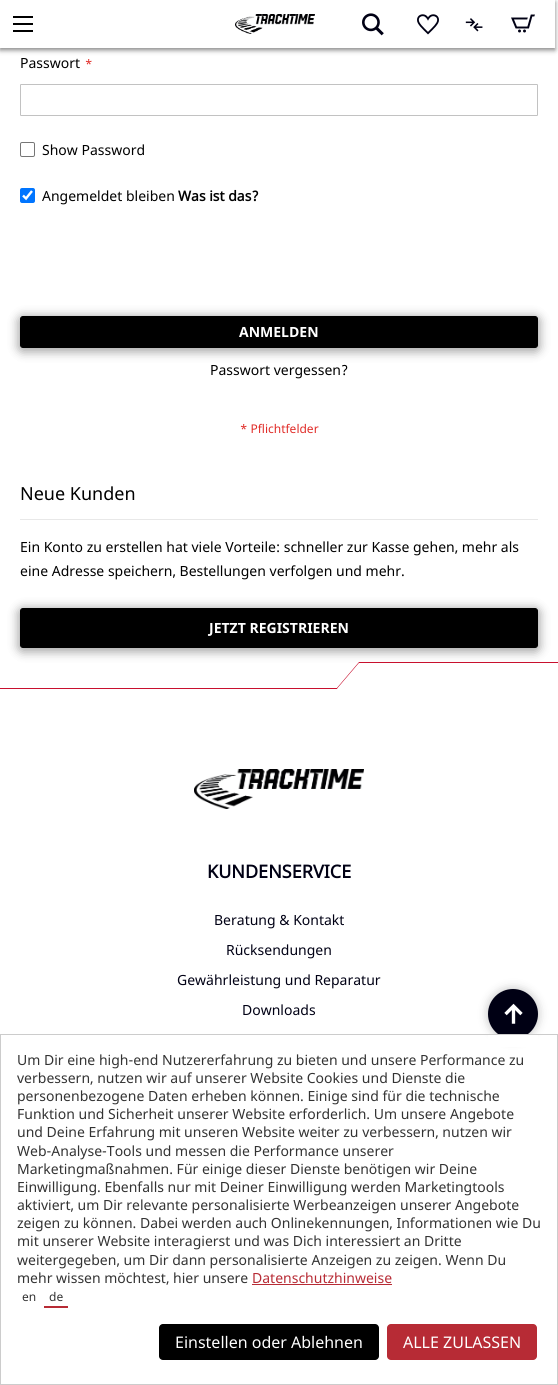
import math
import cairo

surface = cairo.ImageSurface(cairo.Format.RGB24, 558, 1385)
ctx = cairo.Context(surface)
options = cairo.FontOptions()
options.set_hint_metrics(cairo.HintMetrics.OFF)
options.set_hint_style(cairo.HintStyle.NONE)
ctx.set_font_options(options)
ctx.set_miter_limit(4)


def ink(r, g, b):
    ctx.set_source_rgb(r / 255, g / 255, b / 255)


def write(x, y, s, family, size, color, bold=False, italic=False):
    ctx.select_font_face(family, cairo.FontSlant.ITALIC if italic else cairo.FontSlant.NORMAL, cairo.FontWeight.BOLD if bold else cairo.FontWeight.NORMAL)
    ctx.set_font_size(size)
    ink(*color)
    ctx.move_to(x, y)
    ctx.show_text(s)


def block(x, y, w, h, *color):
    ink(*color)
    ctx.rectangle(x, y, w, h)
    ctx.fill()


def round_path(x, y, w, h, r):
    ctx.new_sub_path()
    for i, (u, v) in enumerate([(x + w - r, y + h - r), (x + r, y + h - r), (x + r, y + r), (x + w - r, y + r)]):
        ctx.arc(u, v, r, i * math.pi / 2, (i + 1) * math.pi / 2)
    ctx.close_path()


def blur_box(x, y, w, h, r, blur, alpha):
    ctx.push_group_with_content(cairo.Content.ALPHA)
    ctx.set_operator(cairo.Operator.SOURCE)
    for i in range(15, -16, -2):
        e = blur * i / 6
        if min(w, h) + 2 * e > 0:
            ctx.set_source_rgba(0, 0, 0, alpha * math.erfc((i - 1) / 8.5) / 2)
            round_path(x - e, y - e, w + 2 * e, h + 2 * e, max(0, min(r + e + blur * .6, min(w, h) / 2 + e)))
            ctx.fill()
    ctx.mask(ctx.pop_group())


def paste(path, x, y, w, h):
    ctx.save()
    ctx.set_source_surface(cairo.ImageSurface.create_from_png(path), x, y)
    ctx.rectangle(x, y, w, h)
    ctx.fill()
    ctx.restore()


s1 = dict(family="Noto Sans", size=14, color=(0, 0, 0))
s2 = dict(family="Noto Sans", size=12, color=(224, 43, 39))
s3 = dict(family="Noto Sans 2", size=14, color=(0, 0, 0), bold=True)
s4 = dict(family="Noto Sans", size=14, color=(255, 255, 255), bold=True)
s5 = dict(family="Noto Sans", size=18, color=(0, 0, 0))
s6 = dict(family="Noto Sans 2", size=18, color=(0, 0, 20), bold=True)
s7 = dict(family="Noto Sans", size=14, color=(0, 0, 20))
s8 = dict(family="Noto Sans", size=14, color=(51, 51, 51))
s9 = dict(family="Noto Sans", size=14, color=(183, 43, 53))
s10 = dict(family="Noto Sans", size=12, color=(51, 51, 51))
s11 = dict(family="Noto Sans", size=16, color=(255, 255, 255))

ink(255, 255, 255)
ctx.paint()
ink(0, 0, 0)
blur_box(0, 2, 555, 48, 0, 2.5, 0.5)
block(0, 0, 555, 48, 255, 255, 255)
block(13, 16, 20, 2, 0, 0, 0)
block(13, 23, 20, 2, 0, 0, 0)
block(13, 30, 20, 2, 0, 0, 0)
paste("pic1.png", 235, 14, 80, 20)
paste("pic2.png", 362, 13, 22, 23)
paste("pic3.png", 417, 14, 22, 21)
paste("pic4.png", 465, 18, 18, 14)
paste("pic5.png", 511, 14, 24, 19)
write(20, 68, "Passwort", **s1)
write(85, 68, "*", **s2)
round_path(20.5, 84.5, 517, 31, 0.5)
ink(194, 194, 194)
ctx.set_line_width(1)
ctx.stroke()
round_path(20.5, 142.5, 14, 14, 1.5)
ink(118, 118, 118)
ctx.stroke()
write(42, 155, "Show Password", **s1)
ink(0, 117, 255)
round_path(20, 188, 15, 15, 2)
ctx.fill()
ctx.new_path()
ctx.move_to(23, 195.5)
ctx.line_to(26, 198.5)
ctx.line_to(32, 191)
ink(255, 255, 255)
ctx.set_line_width(2.4)
ctx.stroke()
write(42, 201, "Angemeldet bleiben", **s1)
write(178, 201, "Was ist das?", **s3)
ink(0, 0, 0)
blur_box(18, 316, 522, 36, 5, 5, 0.35)
ink(0, 0, 0)
round_path(20.5, 316.5, 517, 31, 2.5)
ctx.fill_preserve()
ctx.set_line_width(1)
ctx.stroke()
write(239, 337, "ANMELDEN", **s4)
write(210, 375, "Passwort vergessen?", **s1)
write(240, 433, "* Pflichtfelder", **s2)
block(20, 519, 518, 1, 232, 232, 232)
write(20, 500, "Neue Kunden", **s5)
write(20, 552, "Ein Konto zu erstellen hat viele Vorteile: schneller zur Kasse gehen, mehr als", **s1)
write(20, 576, "eine Adresse speichern, Bestellungen verfolgen und mehr.", **s1)
ink(0, 0, 0)
blur_box(18, 608, 522, 44, 5, 5, 0.35)
ink(0, 0, 0)
round_path(20.5, 608.5, 517, 39, 2.5)
ctx.fill_preserve()
ctx.stroke()
write(209, 633, "JETZT REGISTRIEREN", **s4)
block(0, 688, 338, 1, 200, 16, 46)
paste("pic6.png", 337, 662, 221, 27)
paste("pic7.png", 194, 769, 170, 40)
write(207, 878, "KUNDENSERVICE", **s6)
write(214, 925, "Beratung & Kontakt", **s7)
write(226, 955, "Rücksendungen", **s7)
write(177, 985, "Gewährleistung und Reparatur", **s7)
write(242, 1015, "Downloads", **s7)
ink(0, 0, 0)
blur_box(488, 989, 50, 50, 25, 5, 0.25)
ink(0, 0, 20)
ctx.arc(513, 1014, 25, 0, 2 * math.pi)
ctx.fill()
paste("pic8.png", 504, 1003, 19, 21)
block(488, 1035, 50, 12, 255, 255, 255)
ctx.rectangle(0.5, 1034.5, 557, 350)
ink(204, 204, 204)
ctx.stroke()
write(17, 1065, "Um Dir eine high-end Nutzererfahrung zu bieten und unsere Performance zu", **s8)
write(17, 1083, "verbessern, nutzen wir auf unserer Website Cookies und Dienste die", **s8)
write(17, 1101, "personenbezogene Daten erheben können. Einige sind für die technische", **s8)
write(17, 1119, "Funktion und Sicherheit unserer Website erforderlich. Um unsere Angebote", **s8)
write(17, 1137, "und Deine Erfahrung mit unseren Website weiter zu verbessern, nutzen wir", **s8)
write(17, 1156, "Web-Analyse-Tools und messen die Performance unserer", **s8)
write(17, 1174, "Marketingmaßnahmen. Für einige dieser Dienste benötigen wir Deine", **s8)
write(17, 1192, "Einwilligung. Ebenfalls nur mit Deiner Einwilligung werden Marketingtools", **s8)
write(17, 1210, "aktiviert, um Dir relevante personalisierte Werbeanzeigen unserer Angebote", **s8)
write(17, 1228, "zeigen zu können. Dabei werden auch Onlinekennungen, Informationen wie Du", **s8)
write(17, 1246, "mit unserer Website interagierst und was Dich interessiert an Dritte", **s8)
write(17, 1265, "weitergegeben, um Dir dann personalisierte Anzeigen zu zeigen. Wenn Du", **s8)
write(17, 1283, "mehr wissen möchtest, hier unsere", **s8)
write(252, 1283, "Datenschutzhinweise", **s9)
block(252, 1284, 140, 1, 183, 43, 53)
write(22, 1301, "en", **s10)
block(44, 1306, 24, 2, 183, 43, 53)
write(49, 1301, "de", **s10)
ink(0, 0, 0)
round_path(159, 1324, 220, 36, 4)
ctx.fill()
write(175, 1348, "Einstellen oder Ablehnen", **s11)
ink(183, 43, 53)
round_path(387, 1324, 150, 36, 4)
ctx.fill()
write(403, 1348, "ALLE ZULASSEN", **s11)
surface.write_to_png("screenshot.png")
